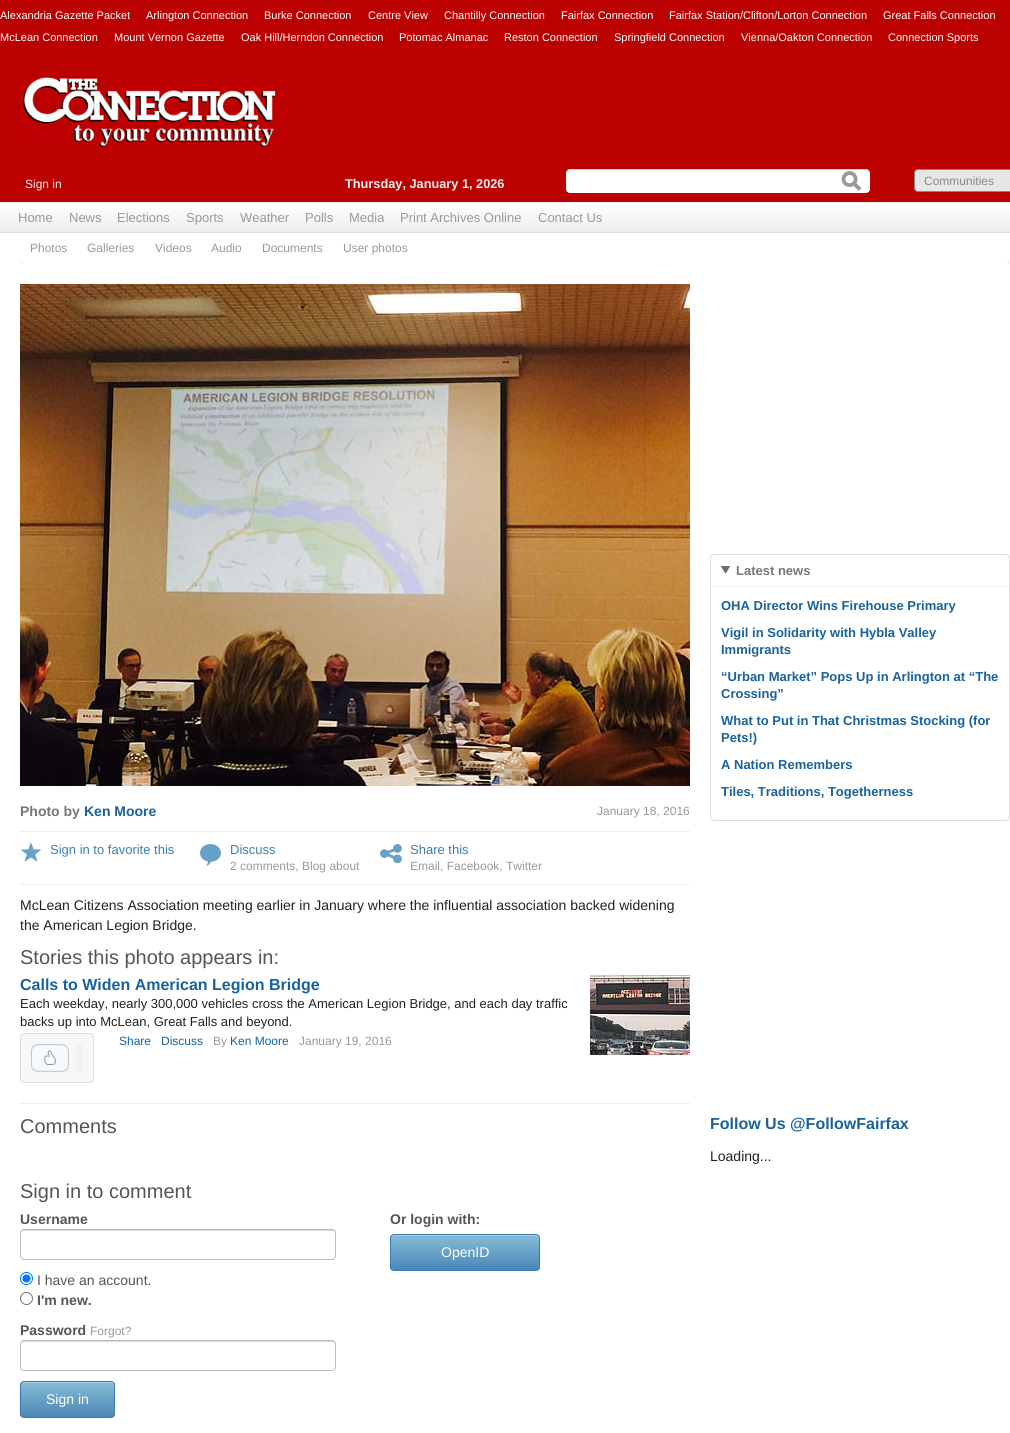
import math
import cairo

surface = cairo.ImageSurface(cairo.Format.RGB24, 1010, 1433)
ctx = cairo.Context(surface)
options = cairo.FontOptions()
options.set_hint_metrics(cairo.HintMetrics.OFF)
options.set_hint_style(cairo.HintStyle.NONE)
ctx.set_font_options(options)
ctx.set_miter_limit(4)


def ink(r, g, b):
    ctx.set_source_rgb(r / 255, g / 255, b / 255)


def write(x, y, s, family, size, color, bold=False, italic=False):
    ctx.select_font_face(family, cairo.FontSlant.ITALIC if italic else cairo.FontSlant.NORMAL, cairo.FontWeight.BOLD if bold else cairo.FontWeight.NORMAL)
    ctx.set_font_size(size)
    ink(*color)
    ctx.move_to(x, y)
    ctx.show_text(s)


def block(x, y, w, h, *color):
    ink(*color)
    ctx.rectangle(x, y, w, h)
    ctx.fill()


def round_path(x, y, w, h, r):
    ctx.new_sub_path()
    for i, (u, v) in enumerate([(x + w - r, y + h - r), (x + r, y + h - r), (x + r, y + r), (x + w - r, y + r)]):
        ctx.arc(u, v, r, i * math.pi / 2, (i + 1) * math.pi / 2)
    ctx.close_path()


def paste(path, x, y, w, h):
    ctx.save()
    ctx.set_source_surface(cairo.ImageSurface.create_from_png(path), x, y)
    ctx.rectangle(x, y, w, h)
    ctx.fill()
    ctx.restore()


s1 = dict(family="Liberation Sans", size=11, color=(255, 255, 255))
s2 = dict(family="Liberation Sans", size=12, color=(239, 239, 239))
s3 = dict(family="Liberation Sans", size=12.75, color=(239, 239, 239), bold=True)
s4 = dict(family="Liberation Sans", size=12, color=(136, 136, 136))
s5 = dict(family="Liberation Sans", size=13, color=(153, 153, 153))
s6 = dict(family="Liberation Sans", size=12, color=(153, 153, 153))
s7 = dict(family="Liberation Sans", size=14, color=(119, 119, 119), bold=True)
s8 = dict(family="Liberation Sans", size=14, color=(24, 98, 157), bold=True)
s9 = dict(family="Liberation Sans", size=13, color=(61, 124, 177))
s10 = dict(family="Liberation Sans", size=14, color=(34, 34, 34))
s11 = dict(family="Liberation Sans", size=20, color=(85, 85, 85))
s12 = dict(family="Liberation Sans", size=16, color=(24, 98, 157), bold=True)
s13 = dict(family="Liberation Sans", size=13, color=(34, 34, 34))
s14 = dict(family="Liberation Sans", size=12, color=(24, 98, 157))
s15 = dict(family="Liberation Sans", size=14, color=(85, 85, 85), bold=True)
s16 = dict(family="Liberation Sans", size=14, color=(85, 85, 85))
s17 = dict(family="Liberation Sans", size=14, color=(255, 255, 255))
s18 = dict(family="Liberation Sans", size=13, color=(119, 119, 119), bold=True)
s19 = dict(family="Liberation Sans", size=13, color=(24, 98, 157), bold=True)

ink(255, 255, 255)
ctx.paint()
block(0, 0, 1010, 202, 187, 0, 0)
write(0, 19, "Alexandria Gazette Packet", **s1)
write(146, 19, "Arlington Connection", **s1)
write(264, 19, "Burke Connection", **s1)
write(368, 19, "Centre View", **s1)
write(444, 19, "Chantilly Connection", **s1)
write(561, 19, "Fairfax Connection", **s1)
write(669, 19, "Fairfax Station/Clifton/Lorton Connection", **s1)
write(883, 19, "Great Falls Connection", **s1)
write(0, 41, "McLean Connection", **s1)
write(114, 41, "Mount Vernon Gazette", **s1)
write(241, 41, "Oak Hill/Herndon Connection", **s1)
write(399, 41, "Potomac Almanac", **s1)
write(504, 41, "Reston Connection", **s1)
write(614, 41, "Springfield Connection", **s1)
write(741, 41, "Vienna/Oakton Connection", **s1)
write(888, 41, "Connection Sports", **s1)
paste("pic1.png", 20, 76, 260, 72)
write(25, 188, "Sign in", **s2)
write(345, 188, "Thursday, January 1, 2026", **s3)
ink(255, 255, 255)
round_path(566, 169, 304, 24, 4)
ctx.fill()
paste("pic2.png", 841, 171, 21, 20)
ctx.set_source_rgba(0, 0, 0, 0.15)
ctx.new_path()
ctx.move_to(570, 170)
ctx.line_to(866, 170)
ctx.curve_to(868, 170, 870, 172, 870, 174)
ctx.curve_to(870, 171, 869, 169, 866, 169)
ctx.line_to(570, 169)
ctx.line_to(567, 170)
ctx.curve_to(566, 171, 566, 173, 566, 174)
ctx.curve_to(566, 172, 568, 170, 570, 170)
ctx.close_path()
ctx.fill()
ink(231, 231, 231)
round_path(914.5, 169.5, 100, 22, 3.5)
ctx.fill_preserve()
ink(136, 136, 136)
ctx.set_line_width(1)
ctx.stroke()
write(924, 185, "Communities", **s4)
gradient = cairo.LinearGradient(505, 174, 505, 203)
gradient.add_color_stop_rgba(0, 1, 1, 1, 1)
gradient.add_color_stop_rgba(1, 0.933, 0.933, 0.933, 1)
ctx.set_source(gradient)
ctx.rectangle(0, 202, 1010, 1)
ctx.fill()
gradient = cairo.LinearGradient(505, 203, 505, 232)
gradient.add_color_stop_rgba(0, 1, 1, 1, 1)
gradient.add_color_stop_rgba(1, 0.933, 0.933, 0.933, 1)
ctx.set_source(gradient)
ctx.rectangle(0, 207, 1010, 25)
ctx.fill()
block(0, 232, 1010, 1, 221, 221, 221)
write(18, 222, "Home", **s5)
write(69, 222, "News", **s5)
write(117, 222, "Elections", **s5)
write(186, 222, "Sports", **s5)
write(240, 222, "Weather", **s5)
write(305, 222, "Polls", **s5)
write(349, 222, "Media", **s5)
write(400, 222, "Print Archives Online", **s5)
write(538, 222, "Contact Us", **s5)
block(20, 258, 990, 6, 243, 243, 243)
ink(255, 255, 255)
ctx.new_path()
ctx.move_to(20, 233)
ctx.line_to(1010, 233)
ctx.line_to(1010, 258)
ctx.curve_to(1010, 261.5, 1007.5, 264, 1004, 264)
ctx.line_to(26, 264)
ctx.curve_to(22.5, 264, 20, 261.5, 20, 258)
ctx.close_path()
ctx.fill()
write(30, 252, "Photos", **s6)
write(87, 252, "Galleries", **s6)
write(155, 252, "Videos", **s6)
write(211, 252, "Audio", **s6)
write(262, 252, "Documents", **s6)
write(343, 252, "User photos", **s6)
paste("pic3.png", 20, 284, 670, 502)
block(20, 831, 670, 1, 238, 238, 238)
write(20, 816, "Photo by", **s7)
write(84, 816, "Ken Moore", **s8)
write(597, 815, "January 18, 2016", **s6)
block(20, 884, 670, 1, 238, 238, 238)
paste("pic4.png", 20, 842, 22, 20)
write(50, 854, "Sign in to favorite this", **s9)
paste("pic5.png", 200, 844, 21, 22)
write(230, 854, "Discuss", **s9)
write(230, 870, "2 comments, Blog about", **s6)
paste("pic6.png", 380, 844, 22, 20)
write(410, 854, "Share this", **s9)
write(410, 870, "Email, Facebook, Twitter", **s6)
write(20, 910, "McLean Citizens Association meeting earlier in January where the influential association backed widening", **s10)
write(20, 930, "the American Legion Bridge.", **s10)
write(20, 964, "Stories this photo appears in:", **s11)
write(20, 990, "Calls to Widen American Legion Bridge", **s12)
paste("pic7.png", 590, 975, 100, 80)
write(20, 1008, "Each weekday, nearly 300,000 vehicles cross the American Legion Bridge, and each day traffic", **s13)
write(20, 1026, "backs up into McLean, Great Falls and beyond.", **s13)
ink(247, 247, 247)
round_path(20.5, 1033.5, 73, 49, 3.5)
ctx.fill_preserve()
ink(222, 222, 222)
ctx.stroke()
block(31, 1044, 38, 28, 242, 242, 242)
block(76, 1044, 7, 28, 242, 242, 242)
paste("pic8.png", 31, 1044, 38, 28)
write(119, 1045, "Share", **s14)
write(161, 1045, "Discuss", **s14)
write(213, 1045, "By", **s6)
write(230, 1045, "Ken Moore", **s14)
write(299, 1045, "January 19, 2016", **s6)
block(20, 1103, 670, 1, 238, 238, 238)
write(20, 1133, "Comments", **s11)
write(20, 1198, "Sign in to comment", **s11)
write(20, 1224, "Username", **s15)
ink(217, 217, 217)
ctx.new_path()
ctx.move_to(24, 1231)
ctx.line_to(332, 1231)
ctx.curve_to(334, 1231, 335, 1232, 335, 1234)
ctx.line_to(334, 1231)
ctx.line_to(333, 1230)
ctx.line_to(24, 1230)
ctx.curve_to(22, 1230, 21, 1232, 21, 1234)
ctx.curve_to(21, 1232, 22, 1231, 24, 1231)
ctx.close_path()
ctx.fill()
round_path(20.5, 1229.5, 315, 30, 3.5)
ink(187, 187, 187)
ctx.stroke()
ctx.arc(26.5, 1278.5, 6, 0, 2 * math.pi)
ink(0, 117, 255)
ctx.stroke()
ctx.arc(26.5, 1278.5, 4, 0, 2 * math.pi)
ctx.fill()
write(37, 1285, "I have an account.", **s16)
ctx.new_path()
ctx.arc(26.5, 1298.5, 6, 0, 2 * math.pi)
ink(118, 118, 118)
ctx.stroke()
write(37, 1305, "I'm new.", **s15)
write(20, 1335, "Password", **s15)
write(90, 1335, "Forgot?", **s6)
ink(217, 217, 217)
ctx.new_path()
ctx.move_to(24, 1342)
ctx.line_to(332, 1342)
ctx.curve_to(334, 1342, 335, 1343, 335, 1345)
ctx.line_to(334, 1342)
ctx.line_to(333, 1341)
ctx.line_to(24, 1341)
ctx.curve_to(22, 1341, 21, 1343, 21, 1345)
ctx.curve_to(21, 1343, 22, 1342, 24, 1342)
ctx.close_path()
ctx.fill()
round_path(20.5, 1340.5, 315, 30, 3.5)
ink(187, 187, 187)
ctx.stroke()
ctx.save()
round_path(20, 1381, 95, 37, 4)
ctx.clip()
gradient = cairo.LinearGradient(68, 1382, 68, 1417)
gradient.add_color_stop_rgba(0, 0.525, 0.737, 0.839, 1)
gradient.add_color_stop_rgba(1, 0.294, 0.529, 0.714, 1)
ctx.set_source(gradient)
ctx.rectangle(20, 1382, 95, 35)
ctx.fill()
ctx.restore()
ctx.set_source_rgba(1, 1, 1, 0.3)
ctx.new_path()
ctx.move_to(24, 1383)
ctx.line_to(111, 1383)
ctx.curve_to(113, 1383, 114, 1384, 114, 1386)
ctx.curve_to(114, 1378, 100, 1382, 96, 1382)
ctx.line_to(38, 1382)
ctx.curve_to(35, 1382, 21, 1378, 21, 1386)
ctx.curve_to(21, 1384, 22, 1383, 24, 1383)
ctx.close_path()
ctx.fill()
round_path(20.5, 1381.5, 94, 36, 3.5)
ink(61, 124, 177)
ctx.stroke()
write(46, 1404, "Sign in", **s17)
write(390, 1224, "Or login with:", **s15)
ctx.save()
round_path(390, 1234, 150, 37, 4)
ctx.clip()
gradient = cairo.LinearGradient(465, 1235, 465, 1270)
gradient.add_color_stop_rgba(0, 0.525, 0.737, 0.839, 1)
gradient.add_color_stop_rgba(1, 0.294, 0.529, 0.714, 1)
ctx.set_source(gradient)
ctx.rectangle(390, 1235, 150, 35)
ctx.fill()
ctx.restore()
ctx.set_source_rgba(1, 1, 1, 0.3)
ctx.new_path()
ctx.move_to(394, 1236)
ctx.line_to(536, 1236)
ctx.curve_to(538, 1236, 539, 1237, 539, 1239)
ctx.curve_to(539, 1237, 539, 1236, 537, 1235)
ctx.line_to(418, 1235)
ctx.curve_to(410, 1235, 391, 1230, 391, 1239)
ctx.curve_to(391, 1237, 392, 1236, 394, 1236)
ctx.close_path()
ctx.fill()
round_path(390.5, 1234.5, 149, 36, 3.5)
ink(61, 124, 177)
ctx.stroke()
write(441, 1257, "OpenID", **s17)
round_path(710.5, 554.5, 299, 266, 3.5)
ink(221, 221, 221)
ctx.stroke()
paste("pic9.png", 721, 566, 9, 8)
write(736, 575, "Latest news", **s18)
block(711, 586, 298, 1, 238, 238, 238)
write(721, 610, "OHA Director Wins Firehouse Primary", **s19)
write(721, 637, "Vigil in Solidarity with Hybla Valley", **s19)
write(721, 654, "Immigrants", **s19)
write(721, 681, "“Urban Market” Pops Up in Arlington at “The", **s19)
write(721, 698, "Crossing”", **s19)
write(721, 725, "What to Put in That Christmas Stocking (for", **s19)
write(721, 742, "Pets!)", **s19)
write(721, 769, "A Nation Remembers", **s19)
write(721, 796, "Tiles, Traditions, Togetherness", **s19)
write(710, 1129, "Follow Us @FollowFairfax", **s12)
write(710, 1161, "Loading...", **s10)
surface.write_to_png("screenshot.png")
